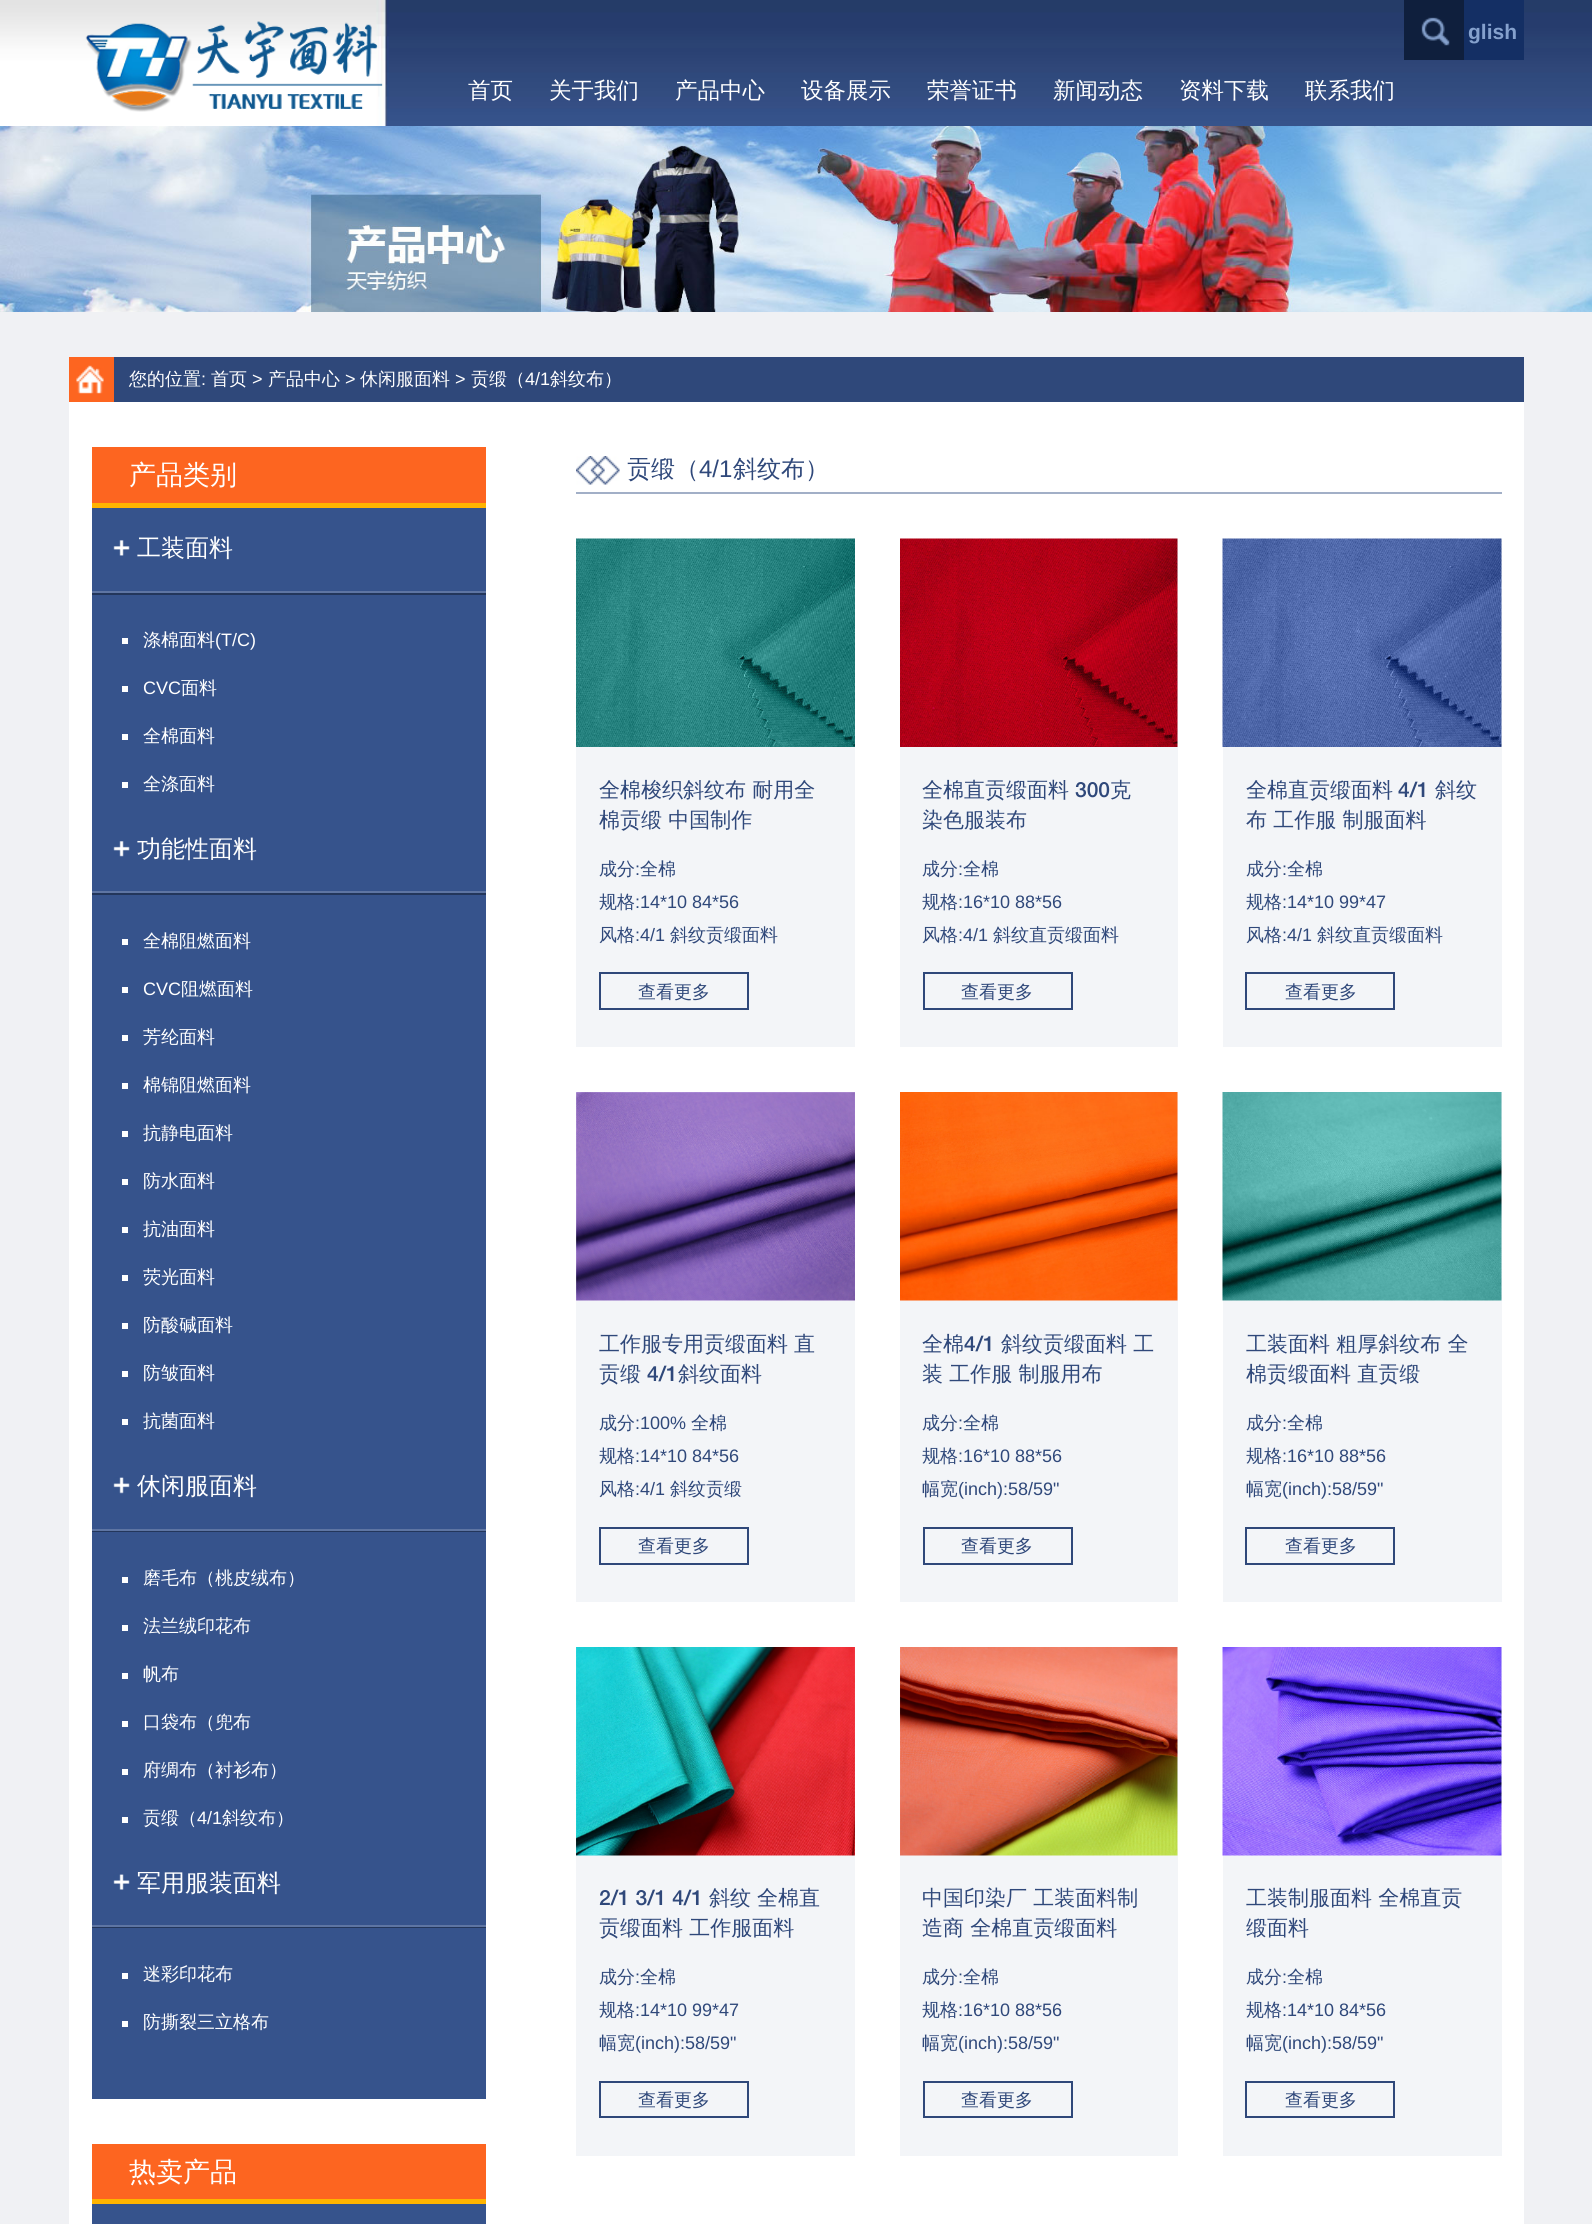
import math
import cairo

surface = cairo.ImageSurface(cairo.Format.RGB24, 1592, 2224)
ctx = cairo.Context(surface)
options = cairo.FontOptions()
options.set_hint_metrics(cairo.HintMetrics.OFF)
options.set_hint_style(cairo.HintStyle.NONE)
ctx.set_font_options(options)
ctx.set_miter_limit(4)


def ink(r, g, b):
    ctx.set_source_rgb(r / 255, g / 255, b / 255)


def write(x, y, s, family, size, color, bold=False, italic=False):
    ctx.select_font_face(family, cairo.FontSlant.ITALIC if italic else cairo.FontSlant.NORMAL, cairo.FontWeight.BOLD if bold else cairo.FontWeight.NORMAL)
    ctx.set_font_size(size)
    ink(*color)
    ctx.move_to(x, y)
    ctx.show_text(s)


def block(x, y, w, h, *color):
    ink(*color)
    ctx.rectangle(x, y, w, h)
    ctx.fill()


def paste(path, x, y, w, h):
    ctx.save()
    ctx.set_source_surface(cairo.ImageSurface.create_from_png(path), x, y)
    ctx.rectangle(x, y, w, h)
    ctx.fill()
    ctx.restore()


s1 = dict(family="Liberation Sans", size=21, color=(133, 161, 205), bold=True)
s2 = dict(family="WenQuanYi Zen Hei Medium", size=22.5, color=(255, 255, 255))
s3 = dict(family="WenQuanYi Zen Hei Medium", size=18, color=(255, 255, 255))
s4 = dict(family="Liberation Sans", size=18, color=(255, 255, 255))
s5 = dict(family="WenQuanYi Zen Hei Medium", size=27, color=(255, 255, 255))
s6 = dict(family="WenQuanYi Zen Hei Medium", size=24, color=(255, 255, 255))
s7 = dict(family="WenQuanYi Zen Hei Medium", size=24, color=(47, 72, 122))
s8 = dict(family="Liberation Sans", size=24, color=(47, 72, 122))
s9 = dict(family="WenQuanYi Zen Hei Medium", size=21, color=(47, 72, 122))
s10 = dict(family="WenQuanYi Zen Hei Medium", size=18, color=(47, 72, 122))
s11 = dict(family="Liberation Sans", size=18, color=(47, 72, 122))
s12 = dict(family="Helvetica Neue Medium", size=21, color=(47, 72, 122))

ink(255, 255, 255)
ctx.paint()
paste("pic1.png", 0, 0, 1592, 126)
paste("pic2.png", 85, 21, 298, 91)
block(1404, 0, 60, 60, 15, 31, 61)
paste("pic3.png", 1421, 17, 29, 29)
block(1464, 0, 60, 60, 20, 47, 100)
write(1468, 39, "glish", **s1)
write(468, 98, "首页", **s2)
write(549, 98, "关于我们", **s2)
write(675, 98, "产品中心", **s2)
write(801, 98, "设备展示", **s2)
write(927, 98, "荣誉证书", **s2)
write(1053, 98, "新闻动态", **s2)
write(1179, 98, "资料下载", **s2)
write(1305, 98, "联系我们", **s2)
paste("pic4.png", 0, 126, 1592, 186)
block(0, 312, 1592, 1912, 240, 241, 244)
block(114, 357, 1410, 45, 47, 72, 122)
block(69, 357, 45, 45, 253, 101, 32)
paste("pic5.png", 76, 365, 28, 29)
write(129, 385, "您的位置", **s3)
write(201, 385, ":", **s4)
write(211, 385, "首页", **s3)
write(252, 385, ">", **s4)
write(268, 385, "产品中心", **s3)
write(345, 385, ">", **s4)
write(360, 385, "休闲服面料", **s3)
write(455, 385, ">", **s4)
write(471, 385, "贡缎（", **s3)
write(525, 385, "4/1", **s4)
write(550, 385, "斜纹布）", **s3)
block(69, 402, 1455, 1822, 255, 255, 255)
block(92, 508, 394, 1591, 54, 83, 140)
block(92, 447, 394, 56, 253, 101, 32)
block(92, 503, 394, 5, 255, 180, 0)
write(129, 484, "产品类别", **s5)
block(92, 593, 394, 2, 35, 54, 91)
paste("pic6.png", 113, 540, 17, 16)
block(92, 591, 394, 2, 94, 117, 163)
write(137, 556, "工装面料", **s6)
block(122, 638, 6, 6, 255, 255, 255)
write(143, 646, "涤棉面料", **s3)
write(215, 646, "(T/C)", **s4)
block(122, 686, 6, 6, 255, 255, 255)
write(143, 694, "CVC", **s4)
write(181, 694, "面料", **s3)
block(122, 734, 6, 6, 255, 255, 255)
write(143, 742, "全棉面料", **s3)
block(122, 782, 6, 6, 255, 255, 255)
write(143, 790, "全涤面料", **s3)
block(92, 893, 394, 2, 35, 54, 91)
paste("pic7.png", 113, 841, 17, 16)
block(92, 891, 394, 2, 94, 117, 163)
write(137, 857, "功能性面料", **s6)
block(122, 939, 6, 6, 255, 255, 255)
write(143, 947, "全棉阻燃面料", **s3)
block(122, 987, 6, 6, 255, 255, 255)
write(143, 995, "CVC", **s4)
write(181, 995, "阻燃面料", **s3)
block(122, 1035, 6, 6, 255, 255, 255)
write(143, 1043, "芳纶面料", **s3)
block(122, 1083, 6, 6, 255, 255, 255)
write(143, 1091, "棉锦阻燃面料", **s3)
block(122, 1131, 6, 6, 255, 255, 255)
write(143, 1139, "抗静电面料", **s3)
block(122, 1179, 6, 6, 255, 255, 255)
write(143, 1187, "防水面料", **s3)
block(122, 1227, 6, 6, 255, 255, 255)
write(143, 1235, "抗油面料", **s3)
block(122, 1275, 6, 6, 255, 255, 255)
write(143, 1283, "荧光面料", **s3)
block(122, 1323, 6, 6, 255, 255, 255)
write(143, 1331, "防酸碱面料", **s3)
block(122, 1371, 6, 6, 255, 255, 255)
write(143, 1379, "防皱面料", **s3)
block(122, 1419, 6, 6, 255, 255, 255)
write(143, 1427, "抗菌面料", **s3)
block(92, 1531, 394, 1, 35, 54, 91)
paste("pic8.png", 113, 1477, 17, 17)
block(92, 1529, 394, 2, 94, 117, 163)
write(137, 1494, "休闲服面料", **s6)
block(122, 1577, 6, 6, 255, 255, 255)
write(143, 1584, "磨毛布（桃皮绒布）", **s3)
block(122, 1625, 6, 6, 255, 255, 255)
write(143, 1632, "法兰绒印花布", **s3)
block(122, 1673, 6, 6, 255, 255, 255)
write(143, 1680, "帆布", **s3)
block(122, 1721, 6, 6, 255, 255, 255)
write(143, 1728, "口袋布（兜布", **s3)
block(122, 1769, 6, 6, 255, 255, 255)
write(143, 1776, "府绸布（衬衫布）", **s3)
block(122, 1817, 6, 6, 255, 255, 255)
write(143, 1824, "贡缎（", **s3)
write(197, 1824, "4/1", **s4)
write(222, 1824, "斜纹布）", **s3)
block(92, 1927, 394, 1, 35, 54, 91)
paste("pic9.png", 113, 1874, 17, 16)
block(92, 1925, 394, 2, 94, 117, 163)
write(137, 1891, "军用服装面料", **s6)
block(122, 1973, 6, 6, 255, 255, 255)
write(143, 1980, "迷彩印花布", **s3)
block(122, 2021, 6, 6, 255, 255, 255)
write(143, 2028, "防撕裂三立格布", **s3)
block(92, 2204, 394, 20, 54, 83, 140)
block(92, 2144, 394, 55, 253, 101, 32)
block(92, 2199, 394, 5, 255, 180, 0)
write(129, 2181, "热卖产品", **s5)
block(576, 492, 926, 2, 162, 175, 199)
paste("pic10.png", 576, 456, 44, 29)
write(627, 477, "贡缎（", **s7)
write(699, 477, "4/1", **s8)
write(733, 477, "斜纹布）", **s7)
block(576, 747, 279, 300, 243, 245, 248)
paste("pic11.png", 576, 538, 279, 209)
write(599, 797, "全棉梭织斜纹布 耐用全", **s9)
write(599, 827, "棉贡缎 中国制作", **s9)
write(599, 875, "成分", **s10)
write(635, 875, ":", **s11)
write(640, 875, "全棉", **s10)
write(599, 908, "规格", **s10)
write(635, 908, ":14*10 84*56", **s11)
write(599, 941, "风格", **s10)
write(635, 941, ":4/1", **s11)
write(670, 941, "斜纹贡缎面料", **s10)
ctx.rectangle(600, 973, 148, 36)
ctx.stroke()
write(638, 998, "查看更多", **s10)
block(900, 539, 278, 508, 243, 245, 248)
paste("pic12.png", 900, 538, 278, 209)
write(922, 797, "全棉直贡缎面料", **s9)
write(1075, 797, "300", **s12)
write(1110, 797, "克", **s9)
write(922, 827, "染色服装布", **s9)
write(922, 875, "成分", **s10)
write(958, 875, ":", **s11)
write(963, 875, "全棉", **s10)
write(922, 908, "规格", **s10)
write(958, 908, ":16*10 88*56", **s11)
write(922, 941, "风格", **s10)
write(958, 941, ":4/1", **s11)
write(993, 941, "斜纹直贡缎面料", **s10)
ctx.rectangle(924, 973, 148, 36)
ctx.stroke()
write(961, 998, "查看更多", **s10)
block(1223, 539, 279, 508, 243, 245, 248)
paste("pic13.png", 1222, 538, 280, 209)
write(1246, 797, "全棉直贡缎面料", **s9)
write(1398, 797, "4/1", **s12)
write(1435, 797, "斜纹", **s9)
write(1246, 827, "布 工作服 制服面料", **s9)
write(1246, 875, "成分", **s10)
write(1282, 875, ":", **s11)
write(1287, 875, "全棉", **s10)
write(1246, 908, "规格", **s10)
write(1282, 908, ":14*10 99*47", **s11)
write(1246, 941, "风格", **s10)
write(1282, 941, ":4/1", **s11)
write(1317, 941, "斜纹直贡缎面料", **s10)
ctx.rectangle(1246, 973, 148, 36)
ctx.stroke()
write(1285, 998, "查看更多", **s10)
block(576, 1300, 279, 302, 243, 245, 248)
paste("pic14.png", 576, 1092, 279, 209)
write(599, 1351, "工作服专用贡缎面料", **s9)
write(794, 1351, "直", **s9)
write(599, 1381, "贡缎", **s9)
write(647, 1381, "4/1", **s12)
write(678, 1381, "斜纹面料", **s9)
write(599, 1429, "成分", **s10)
write(635, 1429, ":100%", **s11)
write(691, 1429, "全棉", **s10)
write(599, 1462, "规格", **s10)
write(635, 1462, ":14*10 84*56", **s11)
write(599, 1495, "风格", **s10)
write(635, 1495, ":4/1", **s11)
write(670, 1495, "斜纹贡缎", **s10)
ctx.rectangle(600, 1528, 148, 36)
ctx.stroke()
write(638, 1552, "查看更多", **s10)
block(900, 1092, 278, 510, 243, 245, 248)
paste("pic15.png", 900, 1092, 278, 209)
write(922, 1351, "全棉", **s9)
write(964, 1351, "4/1", **s12)
write(1001, 1351, "斜纹贡缎面料 工", **s9)
write(922, 1381, "装 工作服 制服用布", **s9)
write(922, 1429, "成分", **s10)
write(958, 1429, ":", **s11)
write(963, 1429, "全棉", **s10)
write(922, 1462, "规格", **s10)
write(958, 1462, ":16*10 88*56", **s11)
write(922, 1495, "幅宽", **s10)
write(958, 1495, "(inch):58/59\"", **s11)
ctx.rectangle(924, 1528, 148, 36)
ctx.stroke()
write(961, 1552, "查看更多", **s10)
block(1223, 1092, 279, 510, 243, 245, 248)
paste("pic16.png", 1222, 1092, 280, 209)
write(1246, 1351, "工装面料 粗厚斜纹布 全", **s9)
write(1246, 1381, "棉贡缎面料 直贡缎", **s9)
write(1246, 1429, "成分", **s10)
write(1282, 1429, ":", **s11)
write(1287, 1429, "全棉", **s10)
write(1246, 1462, "规格", **s10)
write(1282, 1462, ":16*10 88*56", **s11)
write(1246, 1495, "幅宽", **s10)
write(1282, 1495, "(inch):58/59\"", **s11)
ctx.rectangle(1246, 1528, 148, 36)
ctx.stroke()
write(1285, 1552, "查看更多", **s10)
block(576, 1855, 279, 301, 243, 245, 248)
paste("pic17.png", 576, 1647, 279, 209)
write(599, 1905, "2/1 3/1 4/1", **s12)
write(709, 1905, "斜纹", **s9)
write(757, 1905, "全棉直", **s9)
write(599, 1935, "贡缎面料 工作服面料", **s9)
write(599, 1983, "成分", **s10)
write(635, 1983, ":", **s11)
write(640, 1983, "全棉", **s10)
write(599, 2016, "规格", **s10)
write(635, 2016, ":14*10 99*47", **s11)
write(599, 2049, "幅宽", **s10)
write(635, 2049, "(inch):58/59\"", **s11)
ctx.rectangle(600, 2082, 148, 35)
ctx.stroke()
write(638, 2106, "查看更多", **s10)
block(900, 1647, 278, 509, 243, 245, 248)
paste("pic18.png", 900, 1647, 278, 209)
write(922, 1905, "中国印染厂 工装面料制", **s9)
write(922, 1935, "造商 全棉直贡缎面料", **s9)
write(922, 1983, "成分", **s10)
write(958, 1983, ":", **s11)
write(963, 1983, "全棉", **s10)
write(922, 2016, "规格", **s10)
write(958, 2016, ":16*10 88*56", **s11)
write(922, 2049, "幅宽", **s10)
write(958, 2049, "(inch):58/59\"", **s11)
ctx.rectangle(924, 2082, 148, 35)
ctx.stroke()
write(961, 2106, "查看更多", **s10)
block(1223, 1647, 279, 509, 243, 245, 248)
paste("pic19.png", 1222, 1647, 280, 209)
write(1246, 1905, "工装制服面料 全棉直贡", **s9)
write(1246, 1935, "缎面料", **s9)
write(1246, 1983, "成分", **s10)
write(1282, 1983, ":", **s11)
write(1287, 1983, "全棉", **s10)
write(1246, 2016, "规格", **s10)
write(1282, 2016, ":14*10 84*56", **s11)
write(1246, 2049, "幅宽", **s10)
write(1282, 2049, "(inch):58/59\"", **s11)
ctx.rectangle(1246, 2082, 148, 35)
ctx.stroke()
write(1285, 2106, "查看更多", **s10)
surface.write_to_png("screenshot.png")
